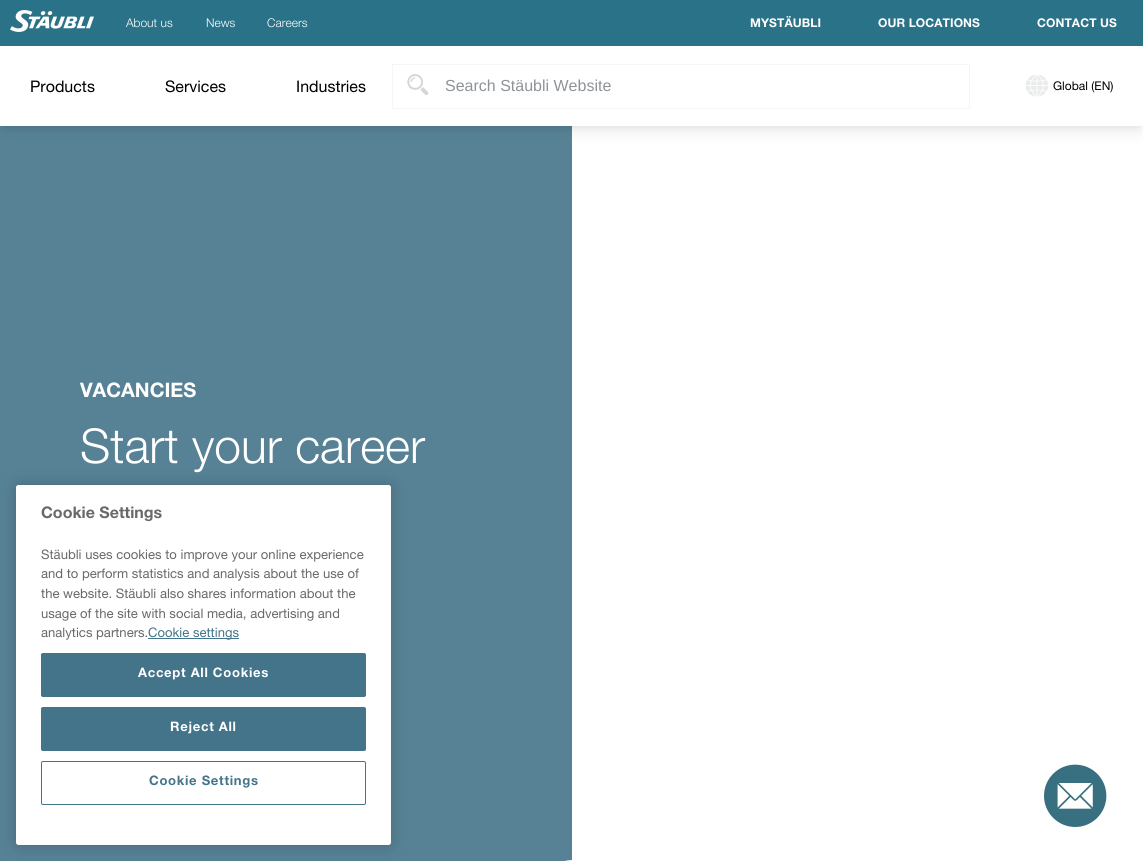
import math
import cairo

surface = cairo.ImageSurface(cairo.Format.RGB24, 1143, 861)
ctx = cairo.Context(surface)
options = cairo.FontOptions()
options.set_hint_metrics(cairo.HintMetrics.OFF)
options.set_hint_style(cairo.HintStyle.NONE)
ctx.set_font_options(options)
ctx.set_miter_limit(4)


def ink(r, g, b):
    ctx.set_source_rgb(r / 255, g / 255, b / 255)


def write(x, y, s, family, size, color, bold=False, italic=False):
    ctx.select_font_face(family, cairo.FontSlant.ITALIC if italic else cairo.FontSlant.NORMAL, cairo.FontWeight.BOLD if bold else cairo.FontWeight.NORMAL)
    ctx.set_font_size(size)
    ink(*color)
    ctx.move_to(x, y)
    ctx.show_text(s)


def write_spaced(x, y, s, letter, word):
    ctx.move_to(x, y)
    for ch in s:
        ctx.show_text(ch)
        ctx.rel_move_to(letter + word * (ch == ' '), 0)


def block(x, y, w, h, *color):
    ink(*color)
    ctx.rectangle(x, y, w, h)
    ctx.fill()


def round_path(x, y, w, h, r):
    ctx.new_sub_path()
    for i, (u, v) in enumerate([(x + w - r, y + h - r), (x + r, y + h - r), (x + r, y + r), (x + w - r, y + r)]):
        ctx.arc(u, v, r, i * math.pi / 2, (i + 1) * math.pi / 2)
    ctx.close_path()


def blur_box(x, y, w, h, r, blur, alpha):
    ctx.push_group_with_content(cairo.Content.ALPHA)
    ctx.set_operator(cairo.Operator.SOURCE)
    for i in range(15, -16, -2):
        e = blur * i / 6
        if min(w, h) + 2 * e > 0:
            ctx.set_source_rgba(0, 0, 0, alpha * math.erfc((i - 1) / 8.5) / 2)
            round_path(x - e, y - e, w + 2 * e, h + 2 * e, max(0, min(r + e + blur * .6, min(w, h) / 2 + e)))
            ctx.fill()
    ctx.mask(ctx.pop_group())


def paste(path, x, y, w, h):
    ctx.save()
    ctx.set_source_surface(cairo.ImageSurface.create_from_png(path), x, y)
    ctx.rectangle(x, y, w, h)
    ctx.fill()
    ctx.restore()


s1 = dict(family="Helvetica Light", size=12, color=(255, 255, 255))
s2 = dict(family="Helvetica", size=16, color=(0, 0, 0))
s3 = dict(family="Liberation Sans", size=16, color=(142, 147, 152))
s4 = dict(family="Helvetica", size=12, color=(0, 0, 0))
s5 = dict(family="Helvetica", size=20, color=(255, 255, 255), bold=True)
s6 = dict(family="Helvetica Light", size=48, color=(255, 255, 255))
s7 = dict(family="Helvetica", size=16, color=(105, 105, 105), bold=True)
s8 = dict(family="Helvetica", size=13.1, color=(105, 105, 105))
s9 = dict(family="Helvetica", size=13.1, color=(67, 116, 138))

ink(255, 255, 255)
ctx.paint()
block(0, 126, 572, 735, 87, 130, 150)
ink(0, 0, 0)
blur_box(3, 13, 1137, 120, 0, 7.5, 0.07)
blur_box(2, 6, 1139, 122, 0, 3, 0.05)
block(0, 0, 1143, 46, 42, 114, 136)
paste("pic1.png", 10, 10, 84, 22)
write(126, 27, "About us", **s1)
write(206, 27, "News", **s1)
write(267, 27, "Careers", **s1)
ctx.select_font_face("Helvetica", cairo.FontSlant.NORMAL, cairo.FontWeight.BOLD)
write_spaced(750, 27, "MYSTÄUBLI", 0.1, 0)
write_spaced(878, 27, "OUR LOCATIONS", 0.1, 0)
write_spaced(1037, 27, "CONTACT US", 0.1, 0)
block(0, 46, 1143, 80, 255, 255, 255)
write(30, 92, "Products", **s2)
write(165, 92, "Services", **s2)
write(296, 92, "Industries", **s2)
ctx.rectangle(392.5, 64.5, 577, 44)
ink(245, 245, 245)
ctx.set_line_width(1)
ctx.stroke()
paste("pic2.png", 407, 74, 22, 22)
write(445, 91, "Search Stäubli Website", **s3)
paste("pic3.png", 1025, 75, 24, 22)
write(1053, 90, "Global (EN)", **s4)
paste("pic4.png", 1044, 764, 63, 63)
write(80, 397, "VACANCIES", **s5)
write(80, 463, "Start your career", **s6)
paste("pic5.png", 565, 860, 7, 1)
ink(0, 0, 0)
blur_box(16, 485, 375, 360, 2.5, 9, 0.2)
ink(255, 255, 255)
round_path(16, 485, 375, 360, 2.5)
ctx.fill()
write(41, 518, "Cookie Settings", **s7)
write(41, 559, "Stäubli uses cookies to improve your online experience", **s8)
write(41, 578, "and to perform statistics and analysis about the use of", **s8)
write(41, 598, "the website. Stäubli also shares information about the", **s8)
write(41, 618, "usage of the site with social media, advertising and", **s8)
write(41, 637, "analytics partners.", **s8)
block(148, 638, 91, 1, 67, 116, 138)
write(148, 637, "Cookie settings", **s9)
round_path(41.5, 653.5, 324, 43, 1.5)
ctx.fill_preserve()
ctx.stroke()
ctx.select_font_face("Helvetica", cairo.FontSlant.NORMAL, cairo.FontWeight.BOLD)
ink(255, 255, 255)
write_spaced(138, 677, "Accept All Cookies", 0.7, 0)
ink(67, 116, 138)
round_path(41.5, 707.5, 324, 43, 1.5)
ctx.fill_preserve()
ctx.stroke()
ink(255, 255, 255)
write_spaced(170, 731, "Reject All", 0.7, 0)
round_path(41.5, 761.5, 324, 43, 1.5)
ink(67, 116, 138)
ctx.stroke()
write_spaced(149, 785, "Cookie Settings", 0.7, 0)
surface.write_to_png("screenshot.png")
